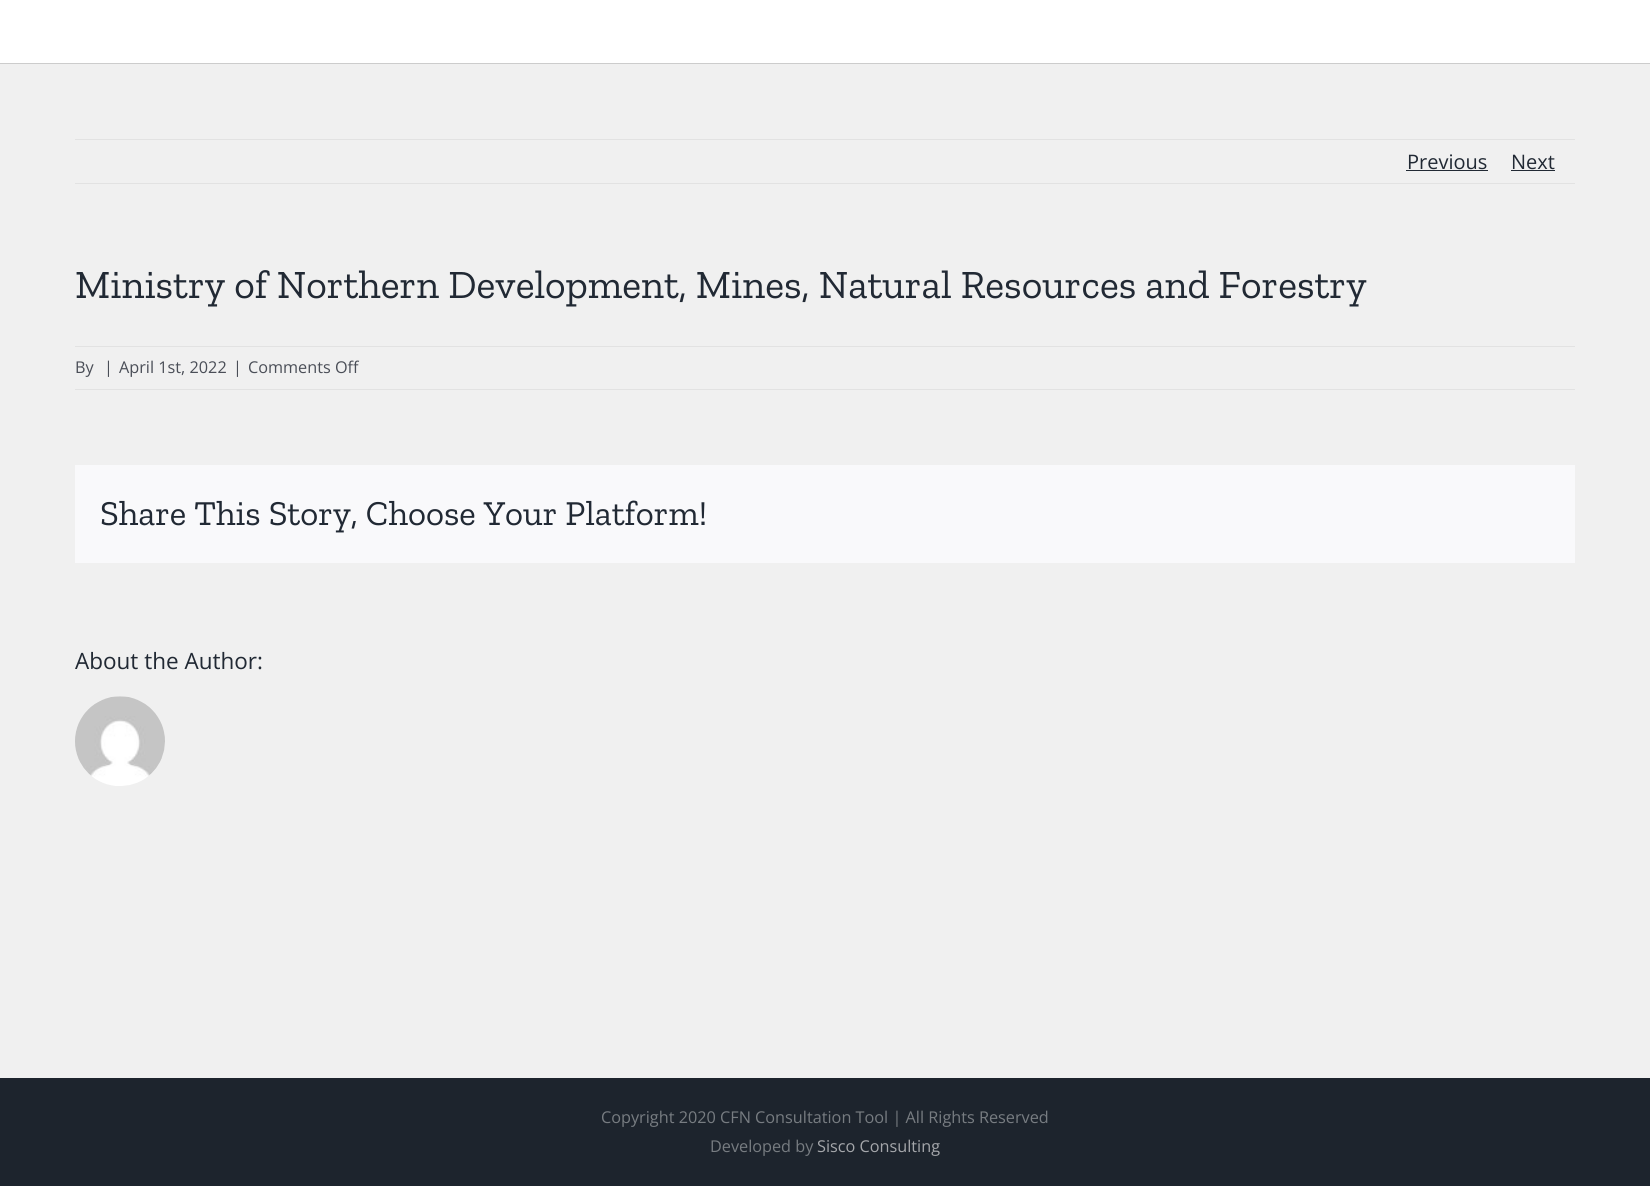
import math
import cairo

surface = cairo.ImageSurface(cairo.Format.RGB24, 1650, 1186)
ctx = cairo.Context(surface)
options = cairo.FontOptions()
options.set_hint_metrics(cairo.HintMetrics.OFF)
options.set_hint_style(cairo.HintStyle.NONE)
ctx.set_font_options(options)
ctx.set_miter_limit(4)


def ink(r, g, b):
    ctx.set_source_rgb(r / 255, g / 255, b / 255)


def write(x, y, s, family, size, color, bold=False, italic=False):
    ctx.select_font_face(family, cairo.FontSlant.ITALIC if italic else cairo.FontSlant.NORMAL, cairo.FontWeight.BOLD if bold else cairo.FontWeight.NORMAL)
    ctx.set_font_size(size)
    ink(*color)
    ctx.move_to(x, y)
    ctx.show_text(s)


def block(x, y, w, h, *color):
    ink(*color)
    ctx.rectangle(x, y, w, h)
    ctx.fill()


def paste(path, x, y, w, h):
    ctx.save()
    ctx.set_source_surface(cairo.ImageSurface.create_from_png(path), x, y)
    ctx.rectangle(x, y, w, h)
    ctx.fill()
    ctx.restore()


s1 = dict(family="Open Sans", size=20, color=(33, 41, 52))
s2 = dict(family="Zilla Slab", size=40, color=(33, 41, 52))
s3 = dict(family="Open Sans", size=16.25, color=(74, 78, 87))
s4 = dict(family="Zilla Slab", size=35, color=(33, 41, 52))
s5 = dict(family="Open Sans", size=22.5, color=(33, 41, 52))
s6 = dict(family="Open Sans", size=16.25, color=(119, 124, 129))
s7 = dict(family="Open Sans", size=16.25, color=(165, 167, 171))

ink(255, 255, 255)
ctx.paint()
block(0, 63, 1650, 1, 204, 204, 204)
block(0, 64, 1650, 1014, 240, 240, 240)
block(75, 139, 1500, 1, 226, 226, 226)
block(75, 183, 1500, 1, 226, 226, 226)
write(1407, 169, "Previous", **s1)
block(1406, 170, 82, 1, 33, 41, 52)
write(1511, 169, "Next", **s1)
block(1511, 170, 44, 1, 33, 41, 52)
write(75, 298, "Ministry of Northern Development, Mines, Natural Resources and Forestry", **s2)
block(75, 346, 1500, 1, 226, 226, 226)
block(75, 389, 1500, 1, 226, 226, 226)
write(75, 373, "By", **s3)
write(104, 373, "|", **s3)
write(119, 373, "April 1st, 2022", **s3)
write(233, 373, "|", **s3)
write(248, 373, "Comments Off", **s3)
block(75, 465, 1500, 98, 249, 249, 251)
write(100, 525, "Share This Story, Choose Your Platform!", **s4)
write(75, 669, "About the Author:", **s5)
paste("pic1.png", 75, 696, 90, 90)
block(0, 1078, 1650, 108, 29, 36, 45)
write(601, 1123, "Copyright 2020 CFN Consultation Tool | All Rights Reserved", **s6)
write(710, 1152, "Developed by", **s6)
write(817, 1152, "Sisco Consulting", **s7)
surface.write_to_png("screenshot.png")
